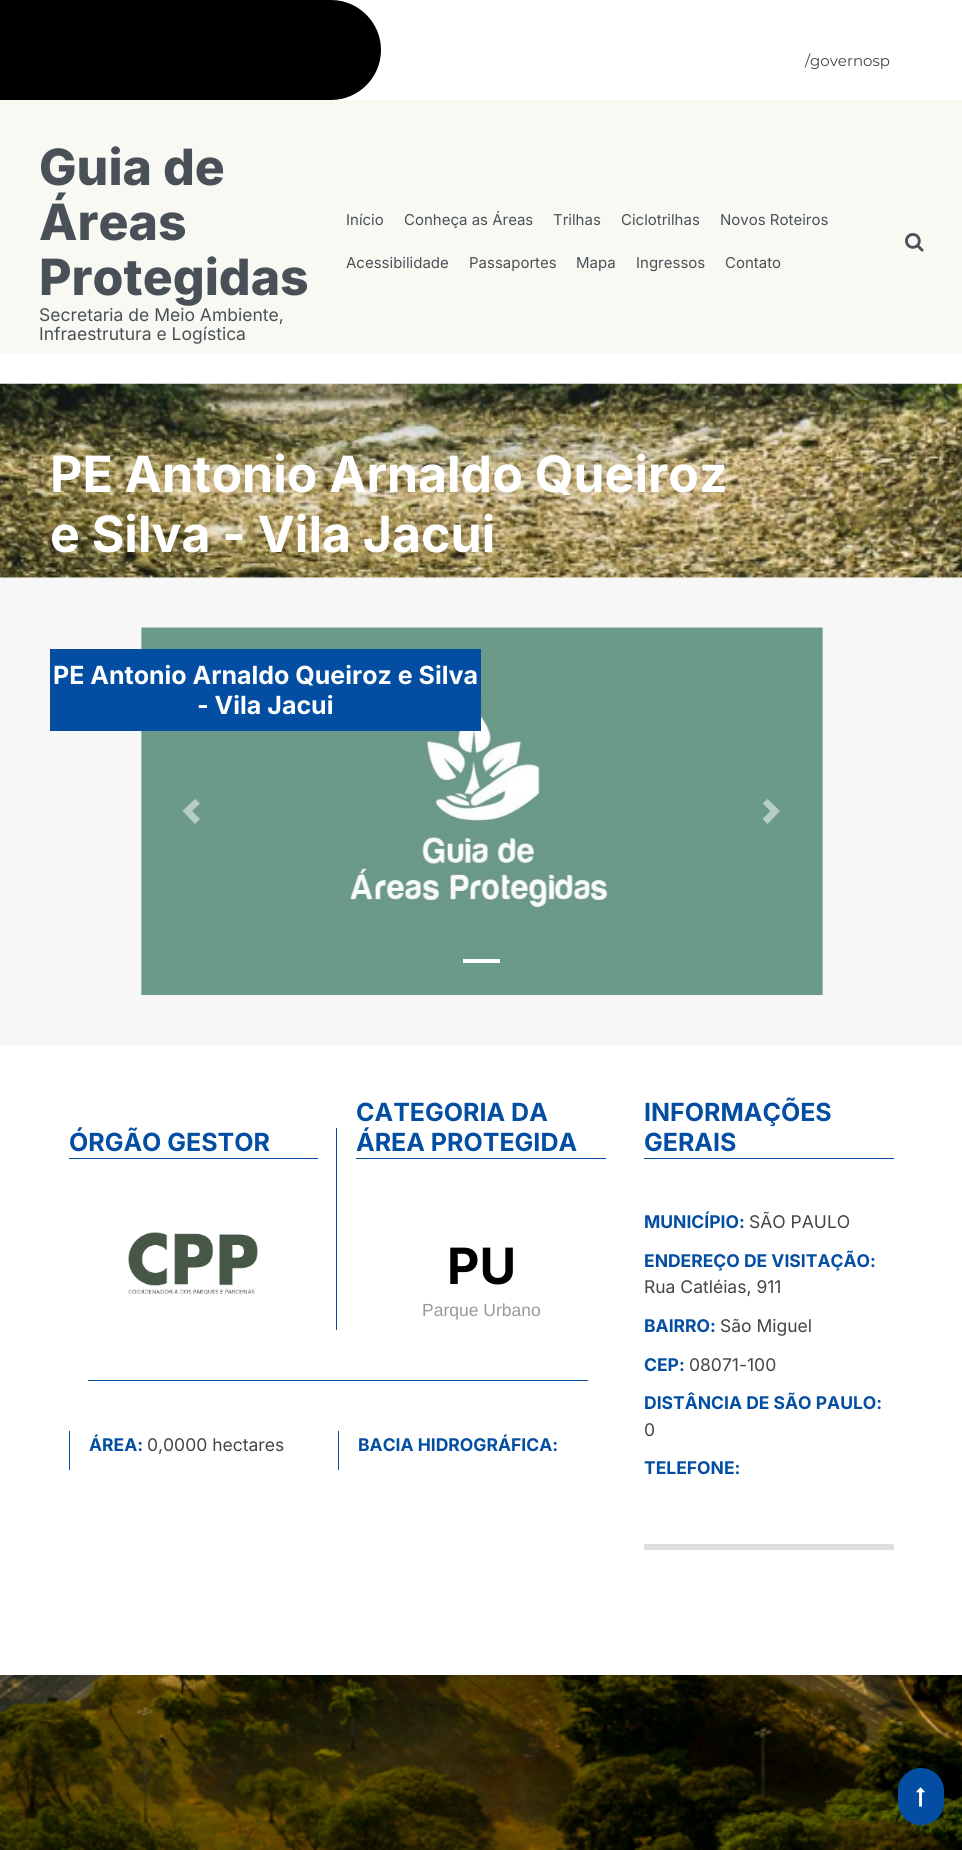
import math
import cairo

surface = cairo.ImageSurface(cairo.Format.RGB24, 962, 1850)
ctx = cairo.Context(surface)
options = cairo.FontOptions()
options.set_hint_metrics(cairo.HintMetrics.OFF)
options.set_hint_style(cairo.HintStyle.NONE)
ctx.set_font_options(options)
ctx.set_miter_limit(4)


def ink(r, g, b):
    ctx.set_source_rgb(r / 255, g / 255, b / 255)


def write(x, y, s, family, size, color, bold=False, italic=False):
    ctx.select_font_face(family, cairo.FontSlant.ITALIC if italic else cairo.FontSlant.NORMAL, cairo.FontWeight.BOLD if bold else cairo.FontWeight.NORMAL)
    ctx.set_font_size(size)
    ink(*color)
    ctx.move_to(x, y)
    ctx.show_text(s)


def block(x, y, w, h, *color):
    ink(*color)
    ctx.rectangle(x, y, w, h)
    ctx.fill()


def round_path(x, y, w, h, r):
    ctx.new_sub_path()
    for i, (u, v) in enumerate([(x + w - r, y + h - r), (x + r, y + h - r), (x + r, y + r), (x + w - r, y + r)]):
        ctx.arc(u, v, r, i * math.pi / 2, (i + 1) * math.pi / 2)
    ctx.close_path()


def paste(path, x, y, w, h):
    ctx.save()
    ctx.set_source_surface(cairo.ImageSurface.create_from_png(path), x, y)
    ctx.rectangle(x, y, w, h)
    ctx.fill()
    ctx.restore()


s1 = dict(family="Montserrat", size=15, color=(68, 68, 68))
s2 = dict(family="Inter ExtraBold", size=50, color=(73, 80, 87))
s3 = dict(family="Inter", size=17.5, color=(73, 80, 87))
s4 = dict(family="Inter", size=15, color=(73, 80, 87))
s5 = dict(family="Inter", size=50, color=(255, 255, 255), bold=True)
s6 = dict(family="Inter", size=25, color=(255, 255, 255), bold=True)
s7 = dict(family="Inter", size=25, color=(3, 78, 162), bold=True)
s8 = dict(family="Inter", size=50, color=(0, 0, 0), bold=True)
s9 = dict(family="Liberation Sans", size=17.5, color=(153, 153, 153))
s10 = dict(family="Inter", size=17.5, color=(3, 78, 162), bold=True)
s11 = dict(family="Inter", size=17.5, color=(68, 68, 68))

ink(255, 255, 255)
ctx.paint()
ink(0, 0, 0)
ctx.new_path()
ctx.move_to(0, 0)
ctx.line_to(331, 0)
ctx.curve_to(358.5, 0, 381, 22.5, 381, 50)
ctx.curve_to(381, 77.5, 358.5, 100, 331, 100)
ctx.line_to(0, 100)
ctx.close_path()
ctx.fill()
write(805, 66, "/governosp", **s1)
block(0, 100, 962, 254, 248, 249, 242)
write(39, 185, "Guia de", **s2)
write(39, 240, "Áreas", **s2)
write(39, 295, "Protegidas", **s2)
write(39, 321, "Secretaria de Meio Ambiente,", **s3)
write(39, 340, "Infraestrutura e Logística", **s3)
write(346, 225, "Início", **s4)
write(404, 225, "Conheça as Áreas", **s4)
write(553, 225, "Trilhas", **s4)
write(621, 225, "Ciclotrilhas", **s4)
write(720, 225, "Novos Roteiros", **s4)
write(346, 268, "Acessibilidade", **s4)
write(469, 268, "Passaportes", **s4)
write(576, 268, "Mapa", **s4)
write(636, 268, "Ingressos", **s4)
write(725, 268, "Contato", **s4)
paste("pic1.png", 905, 233, 19, 19)
paste("pic2.png", 0, 383, 962, 195)
write(50, 492, "PE Antonio Arnaldo Queiroz", **s5)
write(50, 552, "e Silva - Vila Jacui", **s5)
block(0, 578, 962, 467, 247, 247, 247)
paste("pic3.png", 141, 627, 682, 368)
ink(181, 205, 197)
ctx.new_path()
ctx.move_to(195, 799)
ctx.line_to(182.5, 811)
ctx.line_to(195, 824)
ctx.line_to(200, 819)
ctx.line_to(192, 811)
ctx.line_to(200, 803.5)
ctx.close_path()
ctx.fill()
ctx.new_path()
ctx.move_to(767.5, 799)
ctx.line_to(762.5, 803.5)
ctx.line_to(770.5, 811)
ctx.line_to(762.5, 819)
ctx.line_to(767.5, 824)
ctx.line_to(780, 811)
ctx.close_path()
ctx.fill()
block(463, 959, 37, 4, 255, 255, 255)
block(50, 649, 431, 82, 3, 78, 162)
write(53, 684, "PE Antonio Arnaldo Queiroz e Silva", **s6)
write(197, 714, "- Vila Jacui", **s6)
block(336, 1128, 1, 202, 3, 78, 162)
block(69, 1158, 249, 1, 3, 78, 162)
write(69, 1151, "ÓRGÃO GESTOR", **s7)
paste("pic4.png", 128, 1232, 130, 62)
block(356, 1158, 250, 1, 3, 78, 162)
write(356, 1121, "CATEGORIA DA", **s7)
write(356, 1151, "ÁREA PROTEGIDA", **s7)
write(447, 1284, "PU", **s8)
write(422, 1316, "Parque Urbano", **s9)
block(88, 1380, 500, 1, 3, 78, 162)
block(69, 1431, 1, 39, 3, 78, 162)
write(89, 1451, "ÁREA:", **s10)
write(147, 1451, "0,0000 hectares", **s11)
block(338, 1431, 1, 39, 3, 78, 162)
write(358, 1451, "BACIA HIDROGRÁFICA:", **s10)
block(644, 1158, 250, 1, 3, 78, 162)
write(644, 1121, "INFORMAÇÕES", **s7)
write(644, 1151, "GERAIS", **s7)
write(644, 1228, "MUNICÍPIO:", **s10)
write(749, 1228, "SÃO PAULO", **s11)
write(644, 1267, "ENDEREÇO DE VISITAÇÃO:", **s10)
write(644, 1293, "Rua Catléias, 911", **s11)
write(644, 1332, "BAIRRO:", **s10)
write(720, 1332, "São Miguel", **s11)
write(644, 1371, "CEP:", **s10)
write(689, 1371, "08071-100", **s11)
write(644, 1409, "DISTÂNCIA DE SÃO PAULO:", **s10)
write(644, 1436, "0", **s11)
write(644, 1474, "TELEFONE:", **s10)
block(644, 1544, 250, 6, 223, 223, 223)
paste("pic5.png", 0, 1675, 962, 175)
ink(3, 78, 162)
round_path(898, 1768, 46, 57, 23)
ctx.fill()
paste("pic6.png", 916, 1787, 9, 20)
surface.write_to_png("screenshot.png")
